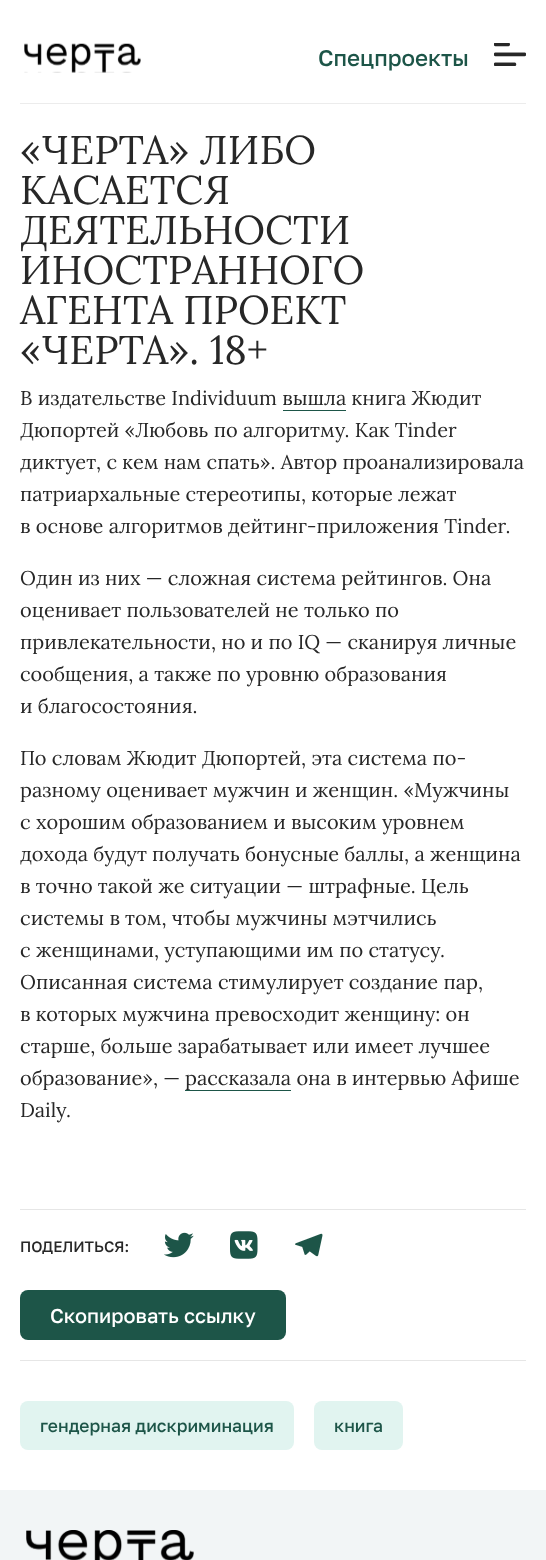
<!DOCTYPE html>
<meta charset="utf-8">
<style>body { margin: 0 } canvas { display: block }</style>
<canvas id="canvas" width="546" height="1560"></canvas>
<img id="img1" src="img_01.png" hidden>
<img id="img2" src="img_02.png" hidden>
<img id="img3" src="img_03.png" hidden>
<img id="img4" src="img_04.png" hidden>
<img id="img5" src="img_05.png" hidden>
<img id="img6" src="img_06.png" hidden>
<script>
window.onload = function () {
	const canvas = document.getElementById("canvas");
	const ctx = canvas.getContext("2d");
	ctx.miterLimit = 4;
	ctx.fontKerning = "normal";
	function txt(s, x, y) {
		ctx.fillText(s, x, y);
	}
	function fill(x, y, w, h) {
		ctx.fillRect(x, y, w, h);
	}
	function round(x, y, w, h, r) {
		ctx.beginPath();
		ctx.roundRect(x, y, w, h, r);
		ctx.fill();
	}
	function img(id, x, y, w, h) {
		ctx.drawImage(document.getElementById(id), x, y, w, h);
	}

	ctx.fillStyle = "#FFFFFF";
	fill(0, 0, 546, 1560);
	img("img1", 24, 43, 117, 30);
	img("img2", 494, 43, 32, 23);
	ctx.fillStyle = "#ECECEC";
	fill(20, 103, 506, 1);
	ctx.fillStyle = "#1D5548";
	fill(283, 410, 63, 1);
	fill(185, 1090, 106, 1);
	ctx.fillStyle = "#E6E6E6";
	fill(20, 1209, 506, 1);
	fill(20, 1360, 506, 1);
	img("img3", 164, 1232, 30, 26);
	img("img4", 230, 1231, 28, 28);
	img("img5", 295, 1233, 28, 24);
	ctx.fillStyle = "#1D5548";
	round(20, 1290, 266, 50, 8);
	ctx.fillStyle = "#E1F4F0";
	round(20, 1401, 274, 49, 8);
	round(314, 1401, 89, 49, 8);
	ctx.fillStyle = "#F2F5F6";
	fill(0, 1490, 546, 70);
	img("img6", 26, 1530, 168, 30);
	ctx.font = "500 22.5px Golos";
	ctx.fillStyle = "#1D5548";
	txt("Спецпроекты", 318, 66);
	ctx.font = "40px Lora";
	ctx.fillStyle = "#272727";
	txt("«ЧЕРТА» ЛИБО", 20, 164);
	txt("КАСАЕТСЯ", 20, 204);
	txt("ДЕЯТЕЛЬНОСТИ", 20, 244);
	txt("ИНОСТРАННОГО", 20, 284);
	txt("АГЕНТА ПРОЕКТ", 20, 324);
	txt("«ЧЕРТА». 18+", 20, 364);
	ctx.font = "20px Lora";
	txt("В издательстве Individuum вышла книга Жюдит", 20, 405);
	txt("Дюпортей «Любовь по алгоритму. Как Tinder", 20, 437);
	txt("диктует, с кем нам спать». Автор проанализировала", 20, 469);
	txt("патриархальные стереотипы, которые лежат", 20, 501);
	txt("в основе алгоритмов дейтинг-приложения Tinder.", 20, 533);
	txt("Один из них — сложная система рейтингов. Она", 20, 585);
	txt("оценивает пользователей не только по", 20, 617);
	txt("привлекательности, но и по IQ — сканируя личные", 20, 649);
	txt("сообщения, а также по уровню образования", 20, 681);
	txt("и благосостояния.", 20, 713);
	txt("По словам Жюдит Дюпортей, эта система по-", 20, 765);
	txt("разному оценивает мужчин и женщин. «Мужчины", 20, 797);
	txt("с хорошим образованием и высоким уровнем", 20, 829);
	txt("дохода будут получать бонусные баллы, а женщина", 20, 861);
	txt("в точно такой же ситуации — штрафные. Цель", 20, 893);
	txt("системы в том, чтобы мужчины мэтчились", 20, 925);
	txt("с женщинами, уступающими им по статусу.", 20, 957);
	txt("Описанная система стимулирует создание пар,", 20, 989);
	txt("в которых мужчина превосходит женщину: он", 20, 1021);
	txt("старше, больше зарабатывает или имеет лучшее", 20, 1053);
	txt("образование», —", 20, 1085);
	txt("рассказала она в интервью Афише", 185, 1085);
	txt("Daily.", 20, 1117);
	ctx.font = "500 15px Golos";
	txt("ПОДЕЛИТЬСЯ:", 20, 1252);
	ctx.font = "500 20px Golos";
	ctx.fillStyle = "#FFFFFF";
	txt("Скопировать ссылку", 50, 1323);
	ctx.font = "500 17.5px Golos";
	ctx.fillStyle = "#1D5548";
	txt("гендерная дискриминация", 40, 1432);
	txt("книга", 334, 1432);
};
</script>
